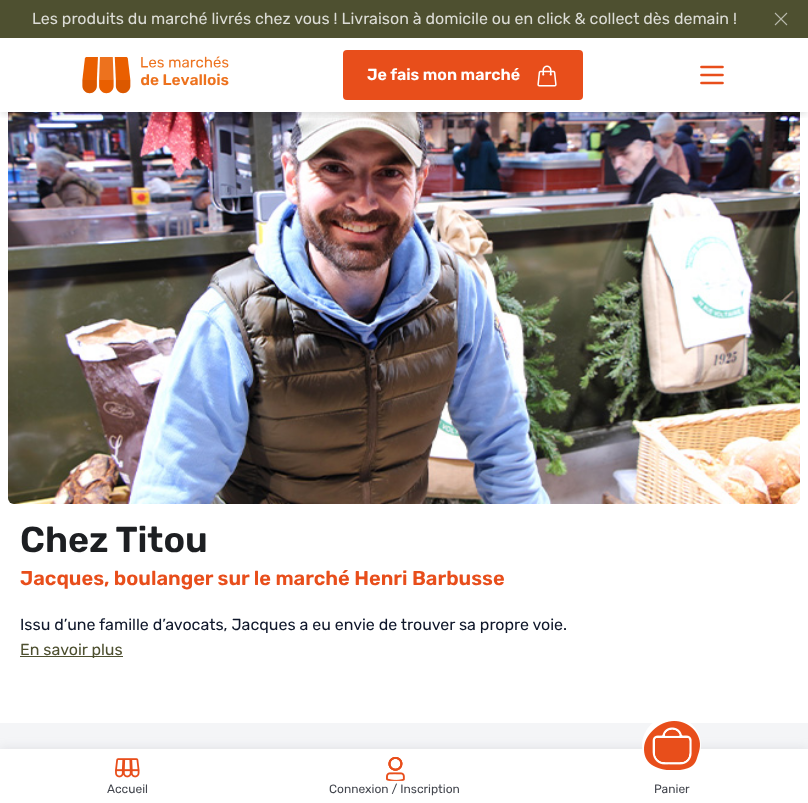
<!DOCTYPE html>
<meta charset="utf-8">
<style>body { margin: 0 } canvas { display: block }</style>
<canvas id="canvas" width="808" height="803"></canvas>
<img id="img1" src="img_03.png" hidden>
<img id="img2" src="img_01.png" hidden>
<img id="img3" src="img_02.png" hidden>
<img id="img4" src="img_04.png" hidden>
<img id="img5" src="img_05.png" hidden>
<img id="img6" src="img_06.png" hidden>
<script>
window.onload = function () {
	const canvas = document.getElementById("canvas");
	const ctx = canvas.getContext("2d");
	ctx.miterLimit = 4;
	ctx.fontKerning = "normal";
	function txt(s, x, y) {
		ctx.fillText(s, x, y);
	}
	function fill(x, y, w, h) {
		ctx.fillRect(x, y, w, h);
	}
	function round(x, y, w, h, r) {
		ctx.beginPath();
		ctx.roundRect(x, y, w, h, r);
		ctx.fill();
	}
	function img(id, x, y, w, h) {
		ctx.drawImage(document.getElementById(id), x, y, w, h);
	}

	ctx.fillStyle = "#FFFFFF";
	fill(0, 0, 808, 803);
	ctx.fillStyle = "#4E5030";
	fill(0, 0, 808, 38);
	ctx.beginPath();
	ctx.moveTo(775, 13);
	ctx.lineTo(787, 25);
	ctx.moveTo(787, 13);
	ctx.lineTo(775, 25);
	ctx.strokeStyle = "#B8B9AC";
	ctx.lineWidth = 1.1;
	ctx.stroke();
	img("img1", 8, 112, 792, 392);
	ctx.save();
	ctx.beginPath();
	ctx.rect(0, 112, 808, 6);
	ctx.clip();
	ctx.fillStyle = "rgba(0, 0, 0, 0.1)";
	ctx.filter = "blur(3px)";
	ctx.beginPath();
	ctx.rect(1, 43, 806, 72);
	ctx.fill();
	ctx.filter = "none";
	ctx.restore();
	img("img2", 82, 56, 147, 38);
	ctx.fillStyle = "#E84E1B";
	round(343, 50, 240, 50, 4);
	img("img3", 537, 65, 20, 22);
	ctx.beginPath();
	ctx.moveTo(701.5, 75);
	ctx.lineTo(722.5, 75);
	ctx.moveTo(701.5, 67);
	ctx.lineTo(722.5, 67);
	ctx.moveTo(701.5, 83);
	ctx.lineTo(722.5, 83);
	ctx.strokeStyle = "#E84E1B";
	ctx.lineWidth = 2.7;
	ctx.lineCap = "round";
	ctx.lineJoin = "round";
	ctx.stroke();
	ctx.fillStyle = "#4E5030";
	fill(20, 656, 103, 1);
	ctx.fillStyle = "#F4F5F7";
	fill(0, 723, 808, 26);
	ctx.fillStyle = "rgba(141, 143, 154, 0.15)";
	ctx.filter = "blur(5px)";
	ctx.beginPath();
	ctx.rect(0, 747, 808, 54);
	ctx.fill();
	ctx.filter = "none";
	ctx.fillStyle = "#FFFFFF";
	fill(0, 749, 808, 54);
	img("img4", 115, 758, 25, 20);
	img("img5", 386, 756, 19, 25);
	ctx.beginPath();
	ctx.arc(671.5, 745.5, 29.5, 0, Math.PI * 2);
	ctx.fill();
	img("img6", 644, 721, 56, 49);
	ctx.font = "16px Rubik";
	ctx.fillStyle = "#DCDCD6";
	txt("Les produits du marché livrés chez vous ! Livraison à domicile ou en click & collect dès demain !", 32, 24);
	ctx.font = "600 16px Rubik";
	ctx.fillStyle = "#FFFFFF";
	txt("Je fais mon marché", 367, 80);
	ctx.font = "600 36px Rubik";
	ctx.fillStyle = "#1D1F22";
	txt("Chez Titou", 20, 552);
	ctx.font = "600 20px Rubik";
	ctx.fillStyle = "#E84E1B";
	txt("Jacques, boulanger sur le marché Henri Barbusse", 20, 585);
	ctx.font = "16px Rubik";
	ctx.fillStyle = "#0F172A";
	txt("Issu d’une famille d’avocats, Jacques a eu envie de trouver sa propre voie.", 20, 630);
	ctx.fillStyle = "#4E5030";
	txt("En savoir plus", 20, 655);
	ctx.font = "12px Rubik";
	ctx.fillStyle = "#43464E";
	txt("Accueil", 107, 793);
	txt("Connexion / Inscription", 329, 793);
	txt("Panier", 654, 793);
};
</script>
